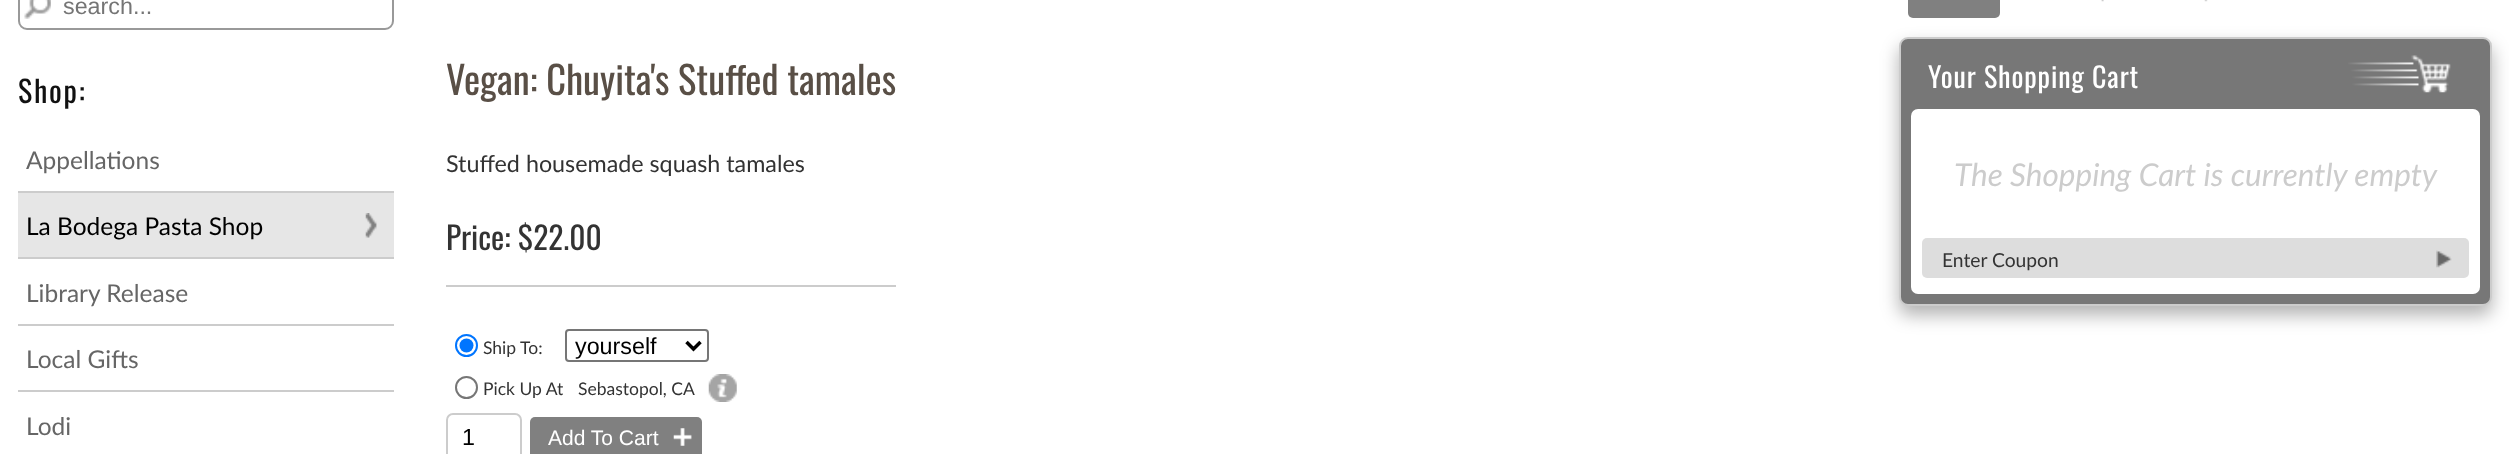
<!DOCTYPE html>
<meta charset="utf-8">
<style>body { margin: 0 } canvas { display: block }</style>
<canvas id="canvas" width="2509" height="454"></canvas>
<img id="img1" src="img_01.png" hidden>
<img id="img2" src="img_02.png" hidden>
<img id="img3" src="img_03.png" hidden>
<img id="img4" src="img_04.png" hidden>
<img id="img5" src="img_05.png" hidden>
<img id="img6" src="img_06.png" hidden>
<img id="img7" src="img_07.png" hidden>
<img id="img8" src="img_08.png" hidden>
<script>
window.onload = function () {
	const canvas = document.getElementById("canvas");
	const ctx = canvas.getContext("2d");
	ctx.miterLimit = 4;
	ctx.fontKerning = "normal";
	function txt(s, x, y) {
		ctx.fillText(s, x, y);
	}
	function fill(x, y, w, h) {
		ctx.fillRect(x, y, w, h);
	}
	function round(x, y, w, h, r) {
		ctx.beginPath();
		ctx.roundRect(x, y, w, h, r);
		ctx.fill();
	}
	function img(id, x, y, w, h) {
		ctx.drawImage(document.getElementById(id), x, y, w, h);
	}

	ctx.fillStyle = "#FFFFFF";
	fill(0, 0, 2509, 454);
	img("img1", 24, 0, 27, 19);
	ctx.beginPath();
	ctx.roundRect(19, -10, 374, 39, 8);
	ctx.strokeStyle = "#999999";
	ctx.lineWidth = 2;
	ctx.stroke();
	ctx.fillStyle = "#CCCCCC";
	fill(18, 191, 376, 2);
	ctx.fillStyle = "#E6E6E6";
	fill(18, 193, 376, 64);
	img("img2", 365, 213, 12, 25);
	ctx.fillStyle = "#CCCCCC";
	fill(18, 257, 376, 2);
	fill(18, 324, 376, 2);
	fill(18, 390, 376, 2);
	fill(446, 285, 450, 2);
	ctx.beginPath();
	ctx.arc(466.5, 345.5, 10.5, 0, Math.PI * 2);
	ctx.strokeStyle = "#0075FF";
	ctx.stroke();
	ctx.fillStyle = "#0075FF";
	ctx.beginPath();
	ctx.arc(466.5, 345.5, 7, 0, Math.PI * 2);
	ctx.fill();
	ctx.beginPath();
	ctx.roundRect(566, 330, 142, 31, 3);
	ctx.strokeStyle = "#767676";
	ctx.stroke();
	ctx.beginPath();
	ctx.moveTo(686.5, 342);
	ctx.lineTo(693.5, 349);
	ctx.lineTo(700.5, 342);
	ctx.strokeStyle = "#000000";
	ctx.lineWidth = 3.5;
	ctx.stroke();
	ctx.beginPath();
	ctx.arc(466.5, 387.5, 10.5, 0, Math.PI * 2);
	ctx.strokeStyle = "#767676";
	ctx.lineWidth = 2;
	ctx.stroke();
	img("img3", 708, 374, 29, 28);
	ctx.beginPath();
	ctx.roundRect(447, 414, 74, 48, 6);
	ctx.strokeStyle = "#CCCCCC";
	ctx.stroke();
	ctx.fillStyle = "#808080";
	round(530, 417, 172, 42, 5);
	img("img4", 673, 428, 19, 18);
	round(1908, -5, 92, 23, 5);
	img("img5", 2101, 0, 3, 2);
	img("img6", 2204, 0, 4, 2);
	ctx.fillStyle = "rgba(0, 0, 0, 0.3)";
	ctx.filter = "blur(9px)";
	ctx.beginPath();
	ctx.roundRect(1899, 46, 593, 269, 9);
	ctx.fill();
	ctx.filter = "none";
	ctx.fillStyle = "#777777";
	ctx.beginPath();
	ctx.roundRect(1900, 38, 591, 267, 8);
	ctx.fill();
	ctx.stroke();
	img("img7", 2348, 55, 103, 38);
	ctx.fillStyle = "#FFFFFF";
	round(1911, 109, 569, 185, 7);
	ctx.fillStyle = "#DDDDDD";
	round(1922, 238, 547, 40, 5);
	img("img8", 2436, 250, 16, 18);
	ctx.font = "23.3px Liberation Sans";
	ctx.fillStyle = "#757575";
	txt("search...", 63, 14);
	ctx.letterSpacing = "1.75px";
	ctx.font = "30px Oswald";
	ctx.fillStyle = "#111111";
	txt("Shop:", 18, 103);
	ctx.letterSpacing = "0px";
	ctx.font = "24.5px Lato";
	ctx.fillStyle = "#666666";
	txt("Appellations", 26, 169);
	ctx.fillStyle = "#000000";
	txt("La Bodega Pasta Shop", 26, 235);
	ctx.fillStyle = "#666666";
	txt("Library Release", 26, 302);
	txt("Local Gifts", 26, 368);
	txt("Lodi", 26, 435);
	ctx.font = "38.5px Oswald";
	ctx.fillStyle = "#594F46";
	txt("Vegan: Chuyita's Stuffed tamales", 446, 95);
	ctx.font = "23.3px Lato";
	ctx.fillStyle = "#333333";
	txt("Stuffed housemade squash tamales", 446, 172);
	ctx.font = "31.5px Oswald";
	txt("Price: $22.00", 446, 250);
	ctx.font = "17.5px Lato";
	txt("Ship To:", 483, 354);
	ctx.font = "23.3px Liberation Sans";
	ctx.fillStyle = "#000000";
	txt("yourself", 575, 354);
	ctx.font = "17.5px Lato";
	ctx.fillStyle = "#333333";
	txt("Pick Up At", 483, 395);
	txt("Sebastopol, CA", 578, 395);
	ctx.font = "23.3px Liberation Sans";
	ctx.fillStyle = "#000000";
	txt("1", 462, 445);
	ctx.font = "21px Liberation Sans";
	ctx.fillStyle = "#FFFFFF";
	txt("Add To Cart", 548, 445);
	ctx.letterSpacing = "0.9px";
	ctx.font = "28px Oswald";
	txt("Your Shopping Cart", 1928, 88);
	ctx.letterSpacing = "0px";
	ctx.font = "italic 31.5px Lato";
	ctx.fillStyle = "#CCCCCC";
	txt("The Shopping Cart is currently empty", 1954, 186);
	ctx.font = "19.25px Lato";
	ctx.fillStyle = "#333333";
	txt("Enter Coupon", 1942, 267);
};
</script>
